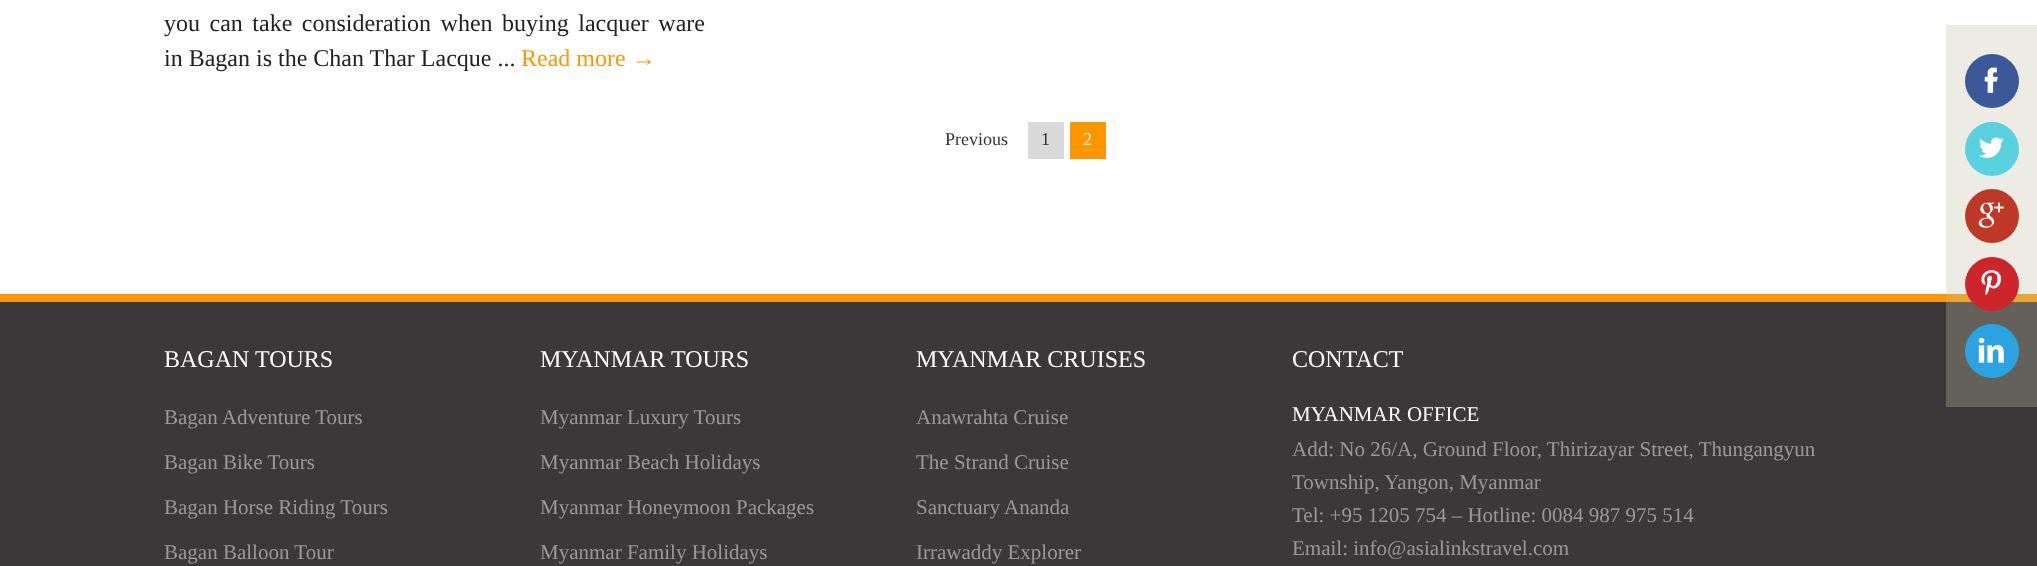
<!DOCTYPE html>
<meta charset="utf-8">
<style>body { margin: 0 } canvas { display: block }</style>
<canvas id="canvas" width="2037" height="566"></canvas>
<img id="img1" src="img_01.png" hidden>
<img id="img2" src="img_02.png" hidden>
<img id="img3" src="img_03.png" hidden>
<img id="img4" src="img_04.png" hidden>
<img id="img5" src="img_05.png" hidden>
<script>
window.onload = function () {
	const canvas = document.getElementById("canvas");
	const ctx = canvas.getContext("2d");
	ctx.miterLimit = 4;
	ctx.fontKerning = "normal";
	function txt(s, x, y) {
		ctx.fillText(s, x, y);
	}
	function fill(x, y, w, h) {
		ctx.fillRect(x, y, w, h);
	}
	function img(id, x, y, w, h) {
		ctx.drawImage(document.getElementById(id), x, y, w, h);
	}

	ctx.fillStyle = "#FFFFFF";
	fill(0, 0, 2037, 566);
	ctx.fillStyle = "#EDECE4";
	fill(1946, 25, 91, 269);
	ctx.fillStyle = "#DADADA";
	fill(1028, 122, 36, 37);
	ctx.fillStyle = "#FF9600";
	fill(1070, 122, 36, 37);
	ctx.fillStyle = "#3B5999";
	ctx.beginPath();
	ctx.arc(1992, 81, 27, 0, Math.PI * 2);
	ctx.fill();
	img("img1", 1984, 67, 14, 26);
	ctx.fillStyle = "#59D1DF";
	ctx.beginPath();
	ctx.arc(1992, 149, 27, 0, Math.PI * 2);
	ctx.fill();
	img("img2", 1979, 137, 25, 21);
	ctx.fillStyle = "#BF3727";
	ctx.beginPath();
	ctx.arc(1992, 216, 27, 0, Math.PI * 2);
	ctx.fill();
	img("img3", 1978, 202, 26, 26);
	ctx.fillStyle = "#3A3839";
	fill(0, 302, 2037, 264);
	ctx.fillStyle = "#636159";
	fill(1946, 302, 91, 105);
	ctx.fillStyle = "#EDA332";
	fill(1946, 294, 91, 8);
	ctx.fillStyle = "#CD252B";
	ctx.beginPath();
	ctx.arc(1992, 284, 27, 0, Math.PI * 2);
	ctx.fill();
	img("img4", 1981, 270, 20, 26);
	ctx.fillStyle = "#2BA3E1";
	ctx.beginPath();
	ctx.arc(1992, 351, 27, 0, Math.PI * 2);
	ctx.fill();
	img("img5", 1978, 337, 26, 26);
	ctx.fillStyle = "#FF9600";
	fill(0, 294, 1946, 8);
	ctx.wordSpacing = "3.5px";
	ctx.font = "24px Liberation Serif";
	ctx.fillStyle = "#222222";
	txt("you can take consideration when buying lacquer ware", 164, 31);
	ctx.wordSpacing = "0px";
	txt("in Bagan is the Chan Thar Lacque ...", 164, 66);
	ctx.fillStyle = "#FF9600";
	txt("Read more →", 521, 66);
	ctx.font = "18px Liberation Serif";
	ctx.fillStyle = "#333333";
	txt("Previous", 945, 145);
	txt("1", 1041, 145);
	ctx.fillStyle = "#FFFFFF";
	txt("2", 1083, 145);
	ctx.font = "24px Liberation Serif";
	txt("BAGAN TOURS", 164, 367);
	ctx.font = "21px Liberation Serif";
	ctx.fillStyle = "#999999";
	txt("Bagan Adventure Tours", 164, 424);
	txt("Bagan Bike Tours", 164, 469);
	txt("Bagan Horse Riding Tours", 164, 514);
	txt("Bagan Balloon Tour", 164, 559);
	ctx.font = "24px Liberation Serif";
	ctx.fillStyle = "#FFFFFF";
	txt("MYANMAR TOURS", 540, 367);
	ctx.font = "21px Liberation Serif";
	ctx.fillStyle = "#999999";
	txt("Myanmar Luxury Tours", 540, 424);
	txt("Myanmar Beach Holidays", 540, 469);
	txt("Myanmar Honeymoon Packages", 540, 514);
	txt("Myanmar Family Holidays", 540, 559);
	ctx.font = "24px Liberation Serif";
	ctx.fillStyle = "#FFFFFF";
	txt("MYANMAR CRUISES", 916, 367);
	ctx.font = "21px Liberation Serif";
	ctx.fillStyle = "#999999";
	txt("Anawrahta Cruise", 916, 424);
	txt("The Strand Cruise", 916, 469);
	txt("Sanctuary Ananda", 916, 514);
	txt("Irrawaddy Explorer", 916, 559);
	ctx.font = "24px Liberation Serif";
	ctx.fillStyle = "#FFFFFF";
	txt("CONTACT", 1292, 367);
	ctx.font = "21px Liberation Serif";
	txt("MYANMAR OFFICE", 1292, 421);
	ctx.fillStyle = "#999999";
	txt("Add: No 26/A, Ground Floor, Thirizayar Street, Thungangyun", 1292, 456);
	txt("Township, Yangon, Myanmar", 1292, 489);
	txt("Tel: +95 1205 754 – Hotline: 0084 987 975 514", 1292, 522);
	txt("Email: info@asialinkstravel.com", 1292, 555);
};
</script>
